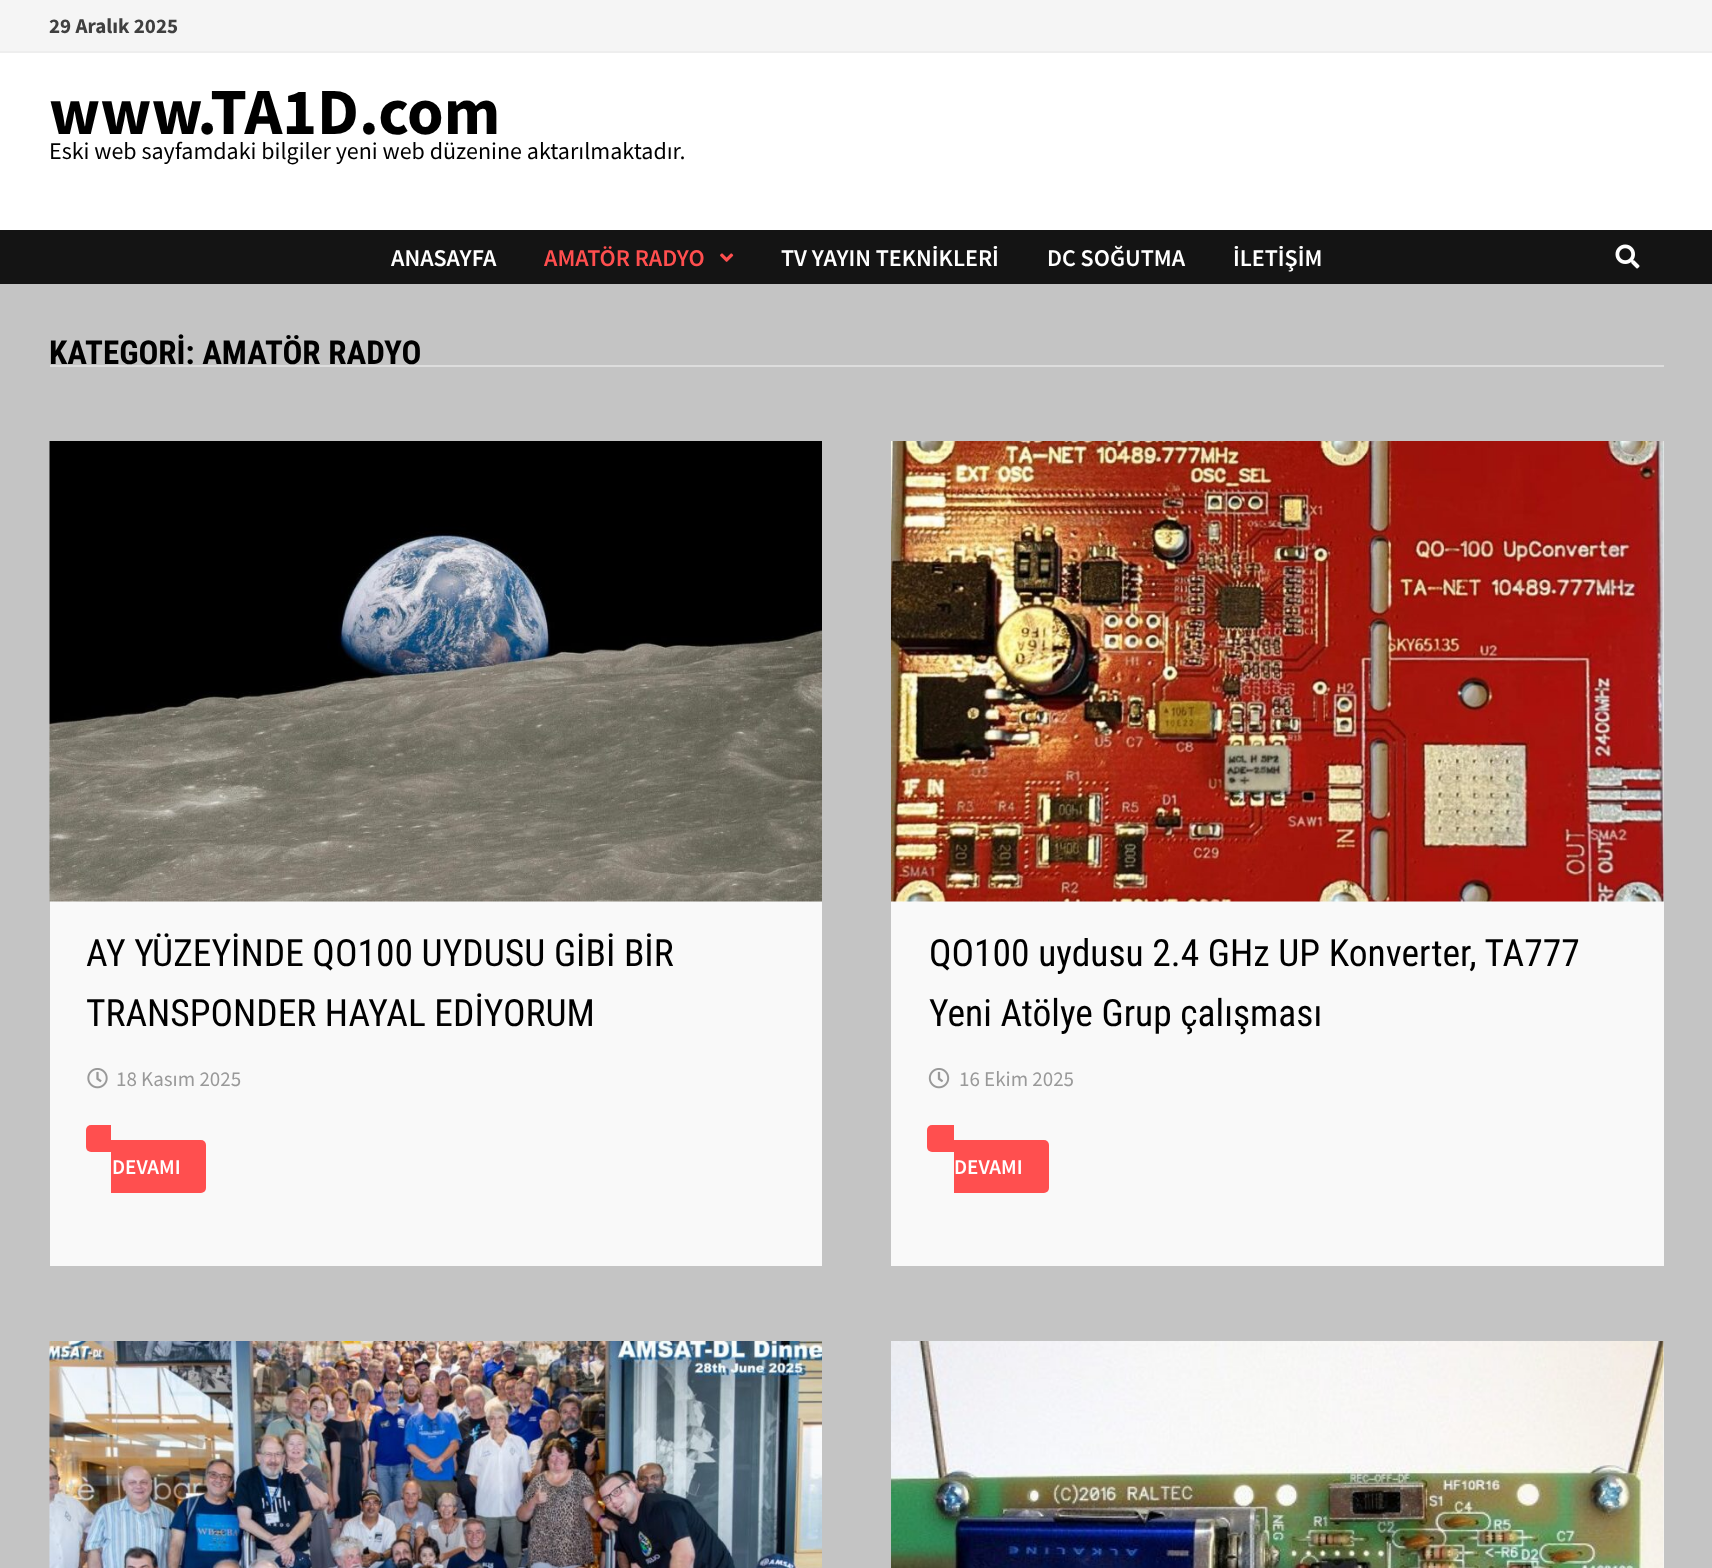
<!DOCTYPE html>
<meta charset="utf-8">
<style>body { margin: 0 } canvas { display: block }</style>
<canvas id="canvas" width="1712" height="1568"></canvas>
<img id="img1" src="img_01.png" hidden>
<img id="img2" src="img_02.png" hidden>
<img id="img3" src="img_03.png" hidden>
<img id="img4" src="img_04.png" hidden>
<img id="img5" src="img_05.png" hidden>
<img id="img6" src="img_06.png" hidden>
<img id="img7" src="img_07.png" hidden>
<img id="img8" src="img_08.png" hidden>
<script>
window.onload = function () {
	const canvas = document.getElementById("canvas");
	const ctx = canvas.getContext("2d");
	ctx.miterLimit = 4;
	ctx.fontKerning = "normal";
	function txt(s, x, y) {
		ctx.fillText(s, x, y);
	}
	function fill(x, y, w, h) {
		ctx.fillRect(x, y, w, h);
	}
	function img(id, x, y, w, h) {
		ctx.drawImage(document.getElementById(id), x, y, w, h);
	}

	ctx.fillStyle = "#FFFFFF";
	fill(0, 0, 1712, 1568);
	ctx.fillStyle = "#F5F5F5";
	fill(0, 0, 1712, 51);
	ctx.fillStyle = "#EEEEEE";
	fill(0, 51, 1712, 2);
	ctx.fillStyle = "#141414";
	fill(0, 230, 1712, 54);
	img("img1", 720, 253, 14, 9);
	img("img2", 1615, 244, 25, 25);
	ctx.fillStyle = "#C4C4C4";
	fill(0, 284, 1712, 1284);
	ctx.fillStyle = "#DDDDDD";
	fill(50, 365, 1614, 2);
	ctx.fillStyle = "#F9F9F9";
	fill(50, 901, 772, 365);
	img("img3", 49, 441, 773, 461);
	img("img4", 87, 1068, 21, 21);
	ctx.fillStyle = "#FF4F4F";
	ctx.beginPath();
	ctx.roundRect(86, 1125, 25, 27, [5, 0, 0, 5]);
	ctx.fill();
	ctx.beginPath();
	ctx.roundRect(111, 1140, 95, 53, [0, 5, 5, 0]);
	ctx.fill();
	ctx.fillStyle = "#F9F9F9";
	fill(891, 441, 773, 825);
	img("img5", 891, 441, 773, 461);
	img("img6", 928, 1068, 22, 21);
	ctx.fillStyle = "#FF4F4F";
	ctx.beginPath();
	ctx.roundRect(927, 1125, 27, 27, [5, 0, 0, 5]);
	ctx.fill();
	ctx.beginPath();
	ctx.roundRect(954, 1140, 95, 53, [0, 5, 5, 0]);
	ctx.fill();
	img("img7", 49, 1341, 773, 227);
	ctx.fillStyle = "#F9F9F9";
	fill(1663, 1341, 1, 227);
	img("img8", 891, 1341, 773, 227);
	ctx.font = "bold 21px Source Sans Pro";
	ctx.fillStyle = "#404040";
	txt("29 Aralık 2025", 49, 33);
	ctx.font = "bold 66px Source Sans Pro";
	ctx.fillStyle = "#000000";
	txt("www.TA1D.com", 49, 134);
	ctx.font = "24px Source Sans Pro";
	txt("Eski web sayfamdaki bilgiler yeni web düzenine aktarılmaktadır.", 49, 159);
	ctx.font = "600 24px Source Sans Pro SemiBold";
	ctx.fillStyle = "#FFFFFF";
	txt("ANASAYFA", 391, 266);
	ctx.fillStyle = "#FF4F4F";
	txt("AMATÖR RADYO", 544, 266);
	ctx.fillStyle = "#FFFFFF";
	txt("TV YAYIN TEKNİKLERİ", 781, 266);
	txt("DC SOĞUTMA", 1047, 266);
	txt("İLETİŞİM", 1233, 266);
	ctx.font = "bold 33px Roboto Condensed";
	ctx.fillStyle = "#000000";
	txt("KATEGORİ: AMATÖR RADYO", 49, 364);
	ctx.font = "37.5px Roboto Condensed";
	txt("AY YÜZEYİNDE QO100 UYDUSU GİBİ BİR", 86, 966);
	txt("TRANSPONDER HAYAL EDİYORUM", 86, 1026);
	ctx.font = "21px Source Sans Pro";
	ctx.fillStyle = "#999999";
	txt("18 Kasım 2025", 116, 1086);
	ctx.font = "600 21px Source Sans Pro SemiBold";
	ctx.fillStyle = "#FFFFFF";
	txt("DEVAMI", 112, 1174);
	ctx.font = "37.5px Roboto Condensed";
	ctx.fillStyle = "#000000";
	txt("QO100 uydusu 2.4 GHz UP Konverter, TA777", 929, 966);
	txt("Yeni Atölye Grup çalışması", 929, 1026);
	ctx.font = "21px Source Sans Pro";
	ctx.fillStyle = "#999999";
	txt("16 Ekim 2025", 959, 1086);
	ctx.font = "600 21px Source Sans Pro SemiBold";
	ctx.fillStyle = "#FFFFFF";
	txt("DEVAMI", 954, 1174);
};
</script>
